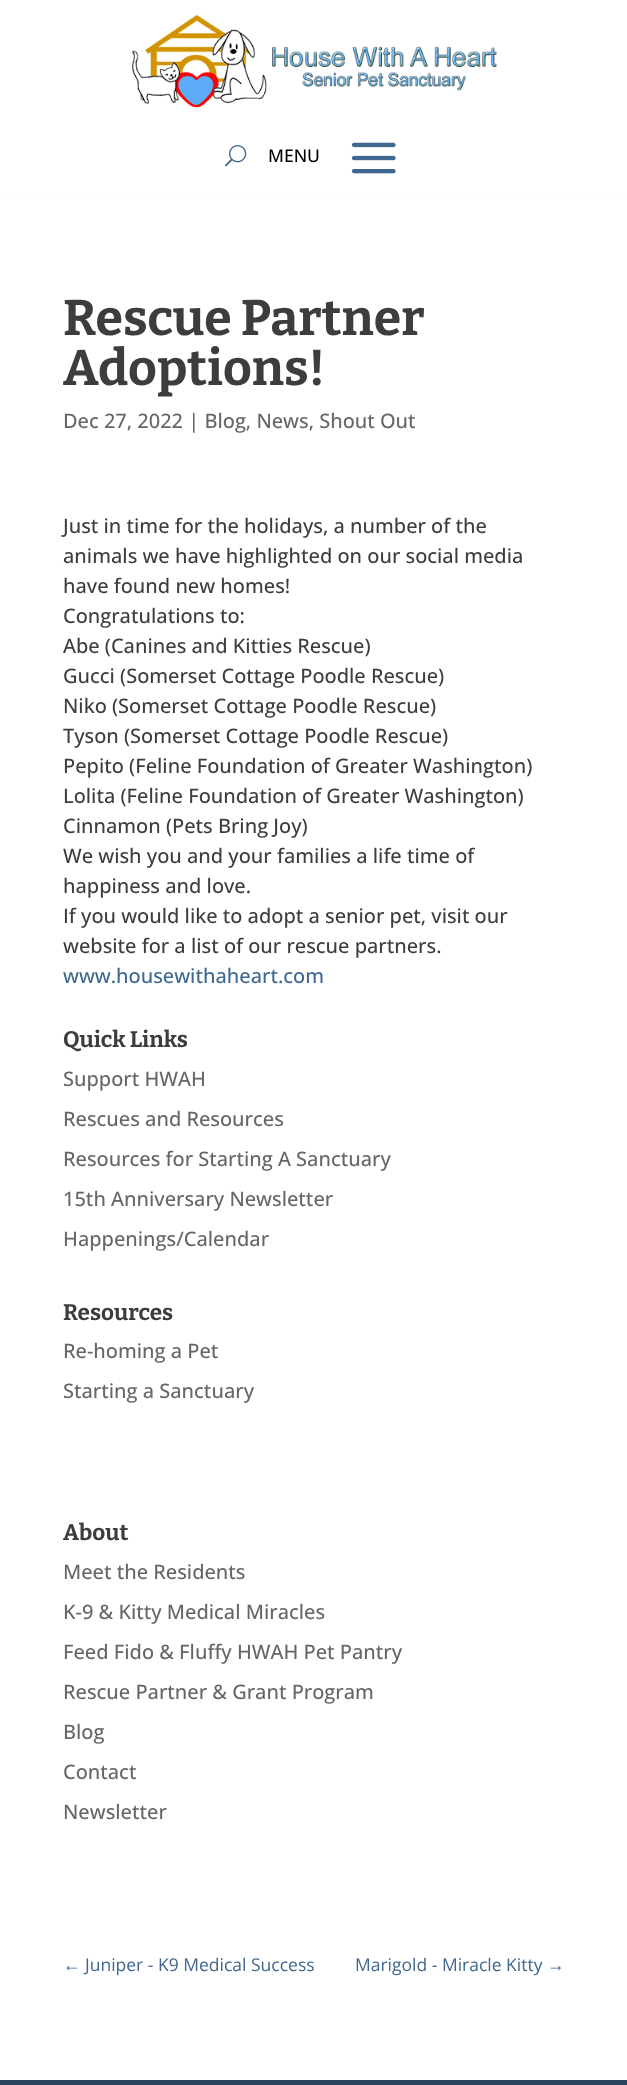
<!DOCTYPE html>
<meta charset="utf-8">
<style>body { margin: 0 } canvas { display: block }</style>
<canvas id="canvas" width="627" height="2085"></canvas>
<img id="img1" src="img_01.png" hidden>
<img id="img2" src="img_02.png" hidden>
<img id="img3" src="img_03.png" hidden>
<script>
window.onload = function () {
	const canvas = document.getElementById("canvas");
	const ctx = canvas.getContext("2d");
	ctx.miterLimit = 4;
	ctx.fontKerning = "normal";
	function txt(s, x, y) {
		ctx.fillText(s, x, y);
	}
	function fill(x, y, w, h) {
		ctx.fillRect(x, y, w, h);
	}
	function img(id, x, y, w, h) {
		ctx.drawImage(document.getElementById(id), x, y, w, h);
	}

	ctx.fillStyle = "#FFFFFF";
	fill(0, 0, 627, 2085);
	ctx.fillStyle = "#FAFAFA";
	fill(0, 193, 627, 1);
	img("img1", 132, 15, 365, 93);
	img("img2", 225, 145, 22, 22);
	img("img3", 351, 142, 45, 32);
	ctx.fillStyle = "#29435D";
	fill(0, 2080, 627, 5);
	ctx.font = "500 17.5px Open Sans";
	ctx.fillStyle = "#000000";
	txt("MENU", 268, 162);
	ctx.font = "100 50px Bitter";
	ctx.fillStyle = "#3D3D3D";
	txt("Rescue Partner", 63, 335);
	txt("Adoptions!", 63, 385);
	ctx.font = "500 20px Open Sans";
	ctx.fillStyle = "#666666";
	txt("Dec 27, 2022 | Blog, News, Shout Out", 63, 428);
	ctx.fillStyle = "#3D3D3D";
	txt("Just in time for the holidays, a number of the", 63, 533);
	txt("animals we have highlighted on our social media", 63, 563);
	txt("have found new homes!", 63, 593);
	txt("Congratulations to:", 63, 623);
	txt("Abe (Canines and Kitties Rescue)", 63, 653);
	txt("Gucci (Somerset Cottage Poodle Rescue)", 63, 683);
	txt("Niko (Somerset Cottage Poodle Rescue)", 63, 713);
	txt("Tyson (Somerset Cottage Poodle Rescue)", 63, 743);
	txt("Pepito (Feline Foundation of Greater Washington)", 63, 773);
	txt("Lolita (Feline Foundation of Greater Washington)", 63, 803);
	txt("Cinnamon (Pets Bring Joy)", 63, 833);
	txt("We wish you and your families a life time of", 63, 863);
	txt("happiness and love.", 63, 893);
	txt("If you would like to adopt a senior pet, visit our", 63, 923);
	txt("website for a list of our rescue partners.", 63, 953);
	ctx.fillStyle = "#3F678F";
	txt("www.housewithaheart.com", 63, 983);
	ctx.font = "100 22.5px Bitter";
	ctx.fillStyle = "#3D3D3D";
	txt("Quick Links", 63, 1047);
	ctx.font = "500 20px Open Sans";
	ctx.fillStyle = "#666666";
	txt("Support HWAH", 63, 1086);
	txt("Rescues and Resources", 63, 1126);
	txt("Resources for Starting A Sanctuary", 63, 1166);
	txt("15th Anniversary Newsletter", 63, 1206);
	txt("Happenings/Calendar", 63, 1246);
	ctx.font = "100 22.5px Bitter";
	ctx.fillStyle = "#3D3D3D";
	txt("Resources", 63, 1320);
	ctx.font = "500 20px Open Sans";
	ctx.fillStyle = "#666666";
	txt("Re-homing a Pet", 63, 1358);
	txt("Starting a Sanctuary", 63, 1398);
	ctx.font = "100 22.5px Bitter";
	ctx.fillStyle = "#3D3D3D";
	txt("About", 63, 1540);
	ctx.font = "500 20px Open Sans";
	ctx.fillStyle = "#666666";
	txt("Meet the Residents", 63, 1579);
	txt("K-9 & Kitty Medical Miracles", 63, 1619);
	txt("Feed Fido & Fluffy HWAH Pet Pantry", 63, 1659);
	txt("Rescue Partner & Grant Program", 63, 1699);
	txt("Blog", 63, 1739);
	txt("Contact", 63, 1779);
	txt("Newsletter", 63, 1819);
	ctx.font = "17.5px Liberation Sans";
	ctx.fillStyle = "#3F678F";
	txt("←", 63, 1971);
	ctx.font = "17.5px Open Sans";
	txt("Juniper - K9 Medical Success", 85, 1971);
	txt("Marigold - Miracle Kitty", 355, 1971);
	ctx.font = "17.5px Liberation Sans";
	txt("→", 547, 1971);
};
</script>
